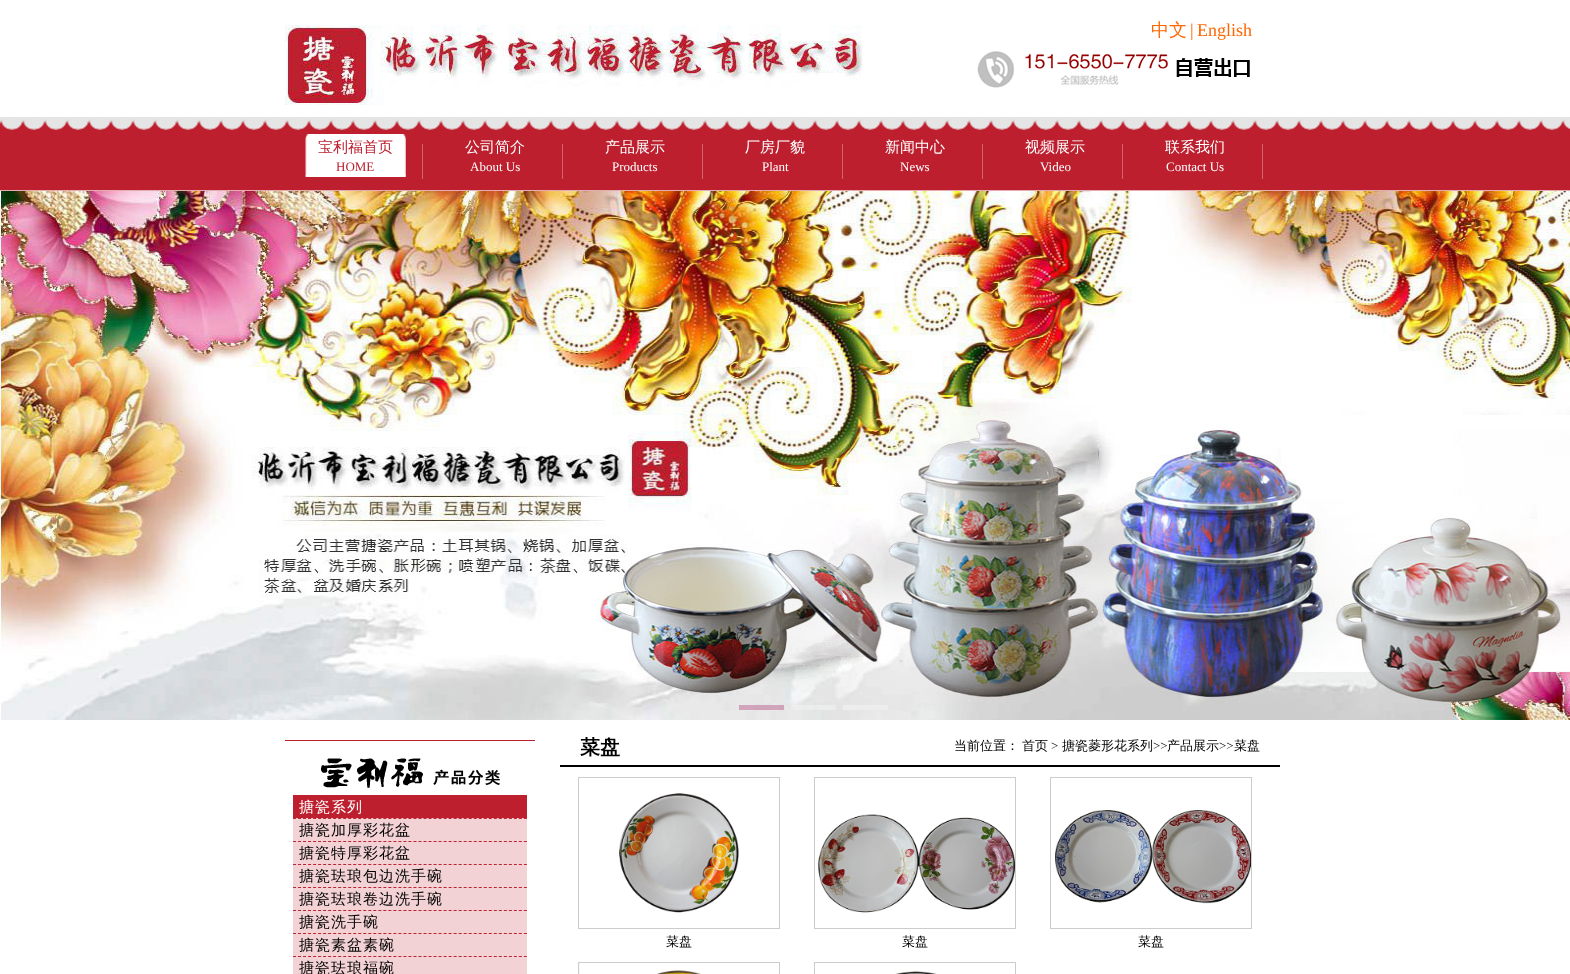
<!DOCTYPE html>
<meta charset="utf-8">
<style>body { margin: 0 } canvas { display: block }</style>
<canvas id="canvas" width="1570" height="974"></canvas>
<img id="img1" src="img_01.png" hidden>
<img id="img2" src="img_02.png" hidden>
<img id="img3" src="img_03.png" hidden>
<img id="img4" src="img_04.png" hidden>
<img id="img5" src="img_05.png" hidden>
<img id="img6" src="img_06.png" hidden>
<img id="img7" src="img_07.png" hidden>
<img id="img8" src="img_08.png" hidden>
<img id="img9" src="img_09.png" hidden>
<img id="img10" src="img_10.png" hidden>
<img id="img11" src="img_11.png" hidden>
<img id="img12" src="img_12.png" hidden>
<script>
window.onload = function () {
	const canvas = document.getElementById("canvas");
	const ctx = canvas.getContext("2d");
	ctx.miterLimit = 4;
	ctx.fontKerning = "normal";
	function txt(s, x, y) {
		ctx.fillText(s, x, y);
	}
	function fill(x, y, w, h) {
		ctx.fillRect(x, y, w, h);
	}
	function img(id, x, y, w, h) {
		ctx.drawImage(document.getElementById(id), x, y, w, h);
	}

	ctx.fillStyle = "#FFFFFF";
	fill(0, 0, 1570, 974);
	img("img1", 285, 25, 578, 80);
	img("img2", 977, 51, 273, 37);
	img("img3", 0, 117, 1570, 74);
	img("img4", 422, 144, 1, 35);
	img("img5", 305, 134, 101, 43);
	img("img4", 562, 144, 1, 35);
	img("img4", 702, 144, 1, 35);
	img("img4", 842, 144, 1, 35);
	img("img4", 982, 144, 1, 35);
	img("img4", 1122, 144, 1, 35);
	img("img4", 1262, 144, 1, 35);
	img("img6", 0, 191, 1570, 529);
	ctx.fillStyle = "rgba(155, 14, 87, 0.3)";
	fill(739, 705, 45, 5);
	ctx.fillStyle = "rgba(255, 255, 255, 0.3)";
	fill(791, 705, 45, 5);
	ctx.fillStyle = "#EDEDED";
	fill(843, 705, 45, 5);
	ctx.fillStyle = "#BD1F2E";
	fill(285, 740, 250, 1);
	img("img7", 321, 758, 179, 30);
	fill(293, 795, 234, 23);
	ctx.beginPath();
	ctx.moveTo(293, 795.5);
	ctx.lineTo(527, 795.5);
	ctx.strokeStyle = "#BE2332";
	ctx.setLineDash([3, 2.02]);
	ctx.stroke();
	ctx.fillStyle = "#F2D2D5";
	fill(293, 818, 234, 156);
	ctx.beginPath();
	ctx.moveTo(293, 818.5);
	ctx.lineTo(527, 818.5);
	ctx.stroke();
	ctx.beginPath();
	ctx.moveTo(293, 841.5);
	ctx.lineTo(527, 841.5);
	ctx.stroke();
	ctx.beginPath();
	ctx.moveTo(293, 864.5);
	ctx.lineTo(527, 864.5);
	ctx.stroke();
	ctx.beginPath();
	ctx.moveTo(293, 887.5);
	ctx.lineTo(527, 887.5);
	ctx.stroke();
	ctx.beginPath();
	ctx.moveTo(293, 910.5);
	ctx.lineTo(527, 910.5);
	ctx.stroke();
	ctx.beginPath();
	ctx.moveTo(293, 933.5);
	ctx.lineTo(527, 933.5);
	ctx.stroke();
	ctx.beginPath();
	ctx.moveTo(293, 956.5);
	ctx.lineTo(527, 956.5);
	ctx.stroke();
	ctx.fillStyle = "#000000";
	fill(560, 765, 720, 2);
	ctx.strokeStyle = "#CCCCCC";
	ctx.setLineDash([]);
	ctx.strokeRect(578.5, 777.5, 201, 151);
	img("img8", 619, 793, 120, 120);
	ctx.strokeRect(814.5, 777.5, 201, 151);
	img("img9", 818, 814, 197, 99);
	ctx.strokeRect(1050.5, 777.5, 201, 151);
	img("img10", 1055, 810, 196, 94);
	ctx.strokeRect(578.5, 962.5, 201, 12);
	img("img11", 579, 963, 122, 11);
	ctx.strokeRect(814.5, 962.5, 201, 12);
	img("img12", 895, 971, 42, 3);
	ctx.font = "500 18px WenQuanYi Zen Hei";
	ctx.fillStyle = "#FF6600";
	txt("中文", 1151, 36);
	ctx.font = "18px Liberation Serif";
	txt("|", 1190, 36);
	txt("English", 1197, 36);
	ctx.font = "500 15px WenQuanYi Zen Hei";
	ctx.fillStyle = "#BD1F2E";
	txt("宝利福首页", 318, 152);
	ctx.font = "13px Liberation Serif";
	txt("HOME", 336, 171);
	ctx.font = "500 15px WenQuanYi Zen Hei";
	ctx.fillStyle = "#FFFFFF";
	txt("公司简介", 465, 152);
	ctx.font = "13px Liberation Serif";
	txt("About Us", 470, 171);
	ctx.font = "500 15px WenQuanYi Zen Hei";
	txt("产品展示", 605, 152);
	ctx.font = "13px Liberation Serif";
	txt("Products", 612, 171);
	ctx.font = "500 15px WenQuanYi Zen Hei";
	txt("厂房厂貌", 745, 152);
	ctx.font = "13px Liberation Serif";
	txt("Plant", 762, 171);
	ctx.font = "500 15px WenQuanYi Zen Hei";
	txt("新闻中心", 885, 152);
	ctx.font = "13px Liberation Serif";
	txt("News", 900, 171);
	ctx.font = "500 15px WenQuanYi Zen Hei";
	txt("视频展示", 1025, 152);
	ctx.font = "13px Liberation Serif";
	txt("Video", 1040, 171);
	ctx.font = "500 15px WenQuanYi Zen Hei";
	txt("联系我们", 1165, 152);
	ctx.font = "13px Liberation Serif";
	txt("Contact Us", 1166, 171);
	ctx.letterSpacing = "1px";
	ctx.font = "500 15px WenQuanYi Zen Hei";
	txt("搪瓷系列", 299, 812);
	ctx.fillStyle = "#000000";
	txt("搪瓷加厚彩花盆", 299, 835);
	txt("搪瓷特厚彩花盆", 299, 858);
	txt("搪瓷珐琅包边洗手碗", 299, 881);
	txt("搪瓷珐琅卷边洗手碗", 299, 904);
	txt("搪瓷洗手碗", 299, 927);
	txt("搪瓷素盆素碗", 299, 950);
	txt("搪瓷珐琅福碗", 299, 973);
	ctx.letterSpacing = "0px";
	ctx.font = "bold 20px WenQuanYi Zen Hei";
	txt("菜盘", 580, 754);
	ctx.font = "500 13px WenQuanYi Zen Hei";
	txt("当前位置：", 954, 750);
	txt("首页", 1022, 750);
	ctx.font = "13px Liberation Serif";
	txt(">", 1051, 750);
	ctx.font = "500 13px WenQuanYi Zen Hei";
	txt("搪瓷菱形花系列", 1062, 750);
	ctx.font = "13px Liberation Serif";
	txt(">>", 1153, 750);
	ctx.font = "500 13px WenQuanYi Zen Hei";
	txt("产品展示", 1167, 750);
	ctx.font = "13px Liberation Serif";
	txt(">>", 1219, 750);
	ctx.font = "500 13px WenQuanYi Zen Hei";
	txt("菜盘", 1234, 750);
	txt("菜盘", 666, 946);
	txt("菜盘", 902, 946);
	txt("菜盘", 1138, 946);
};
</script>
